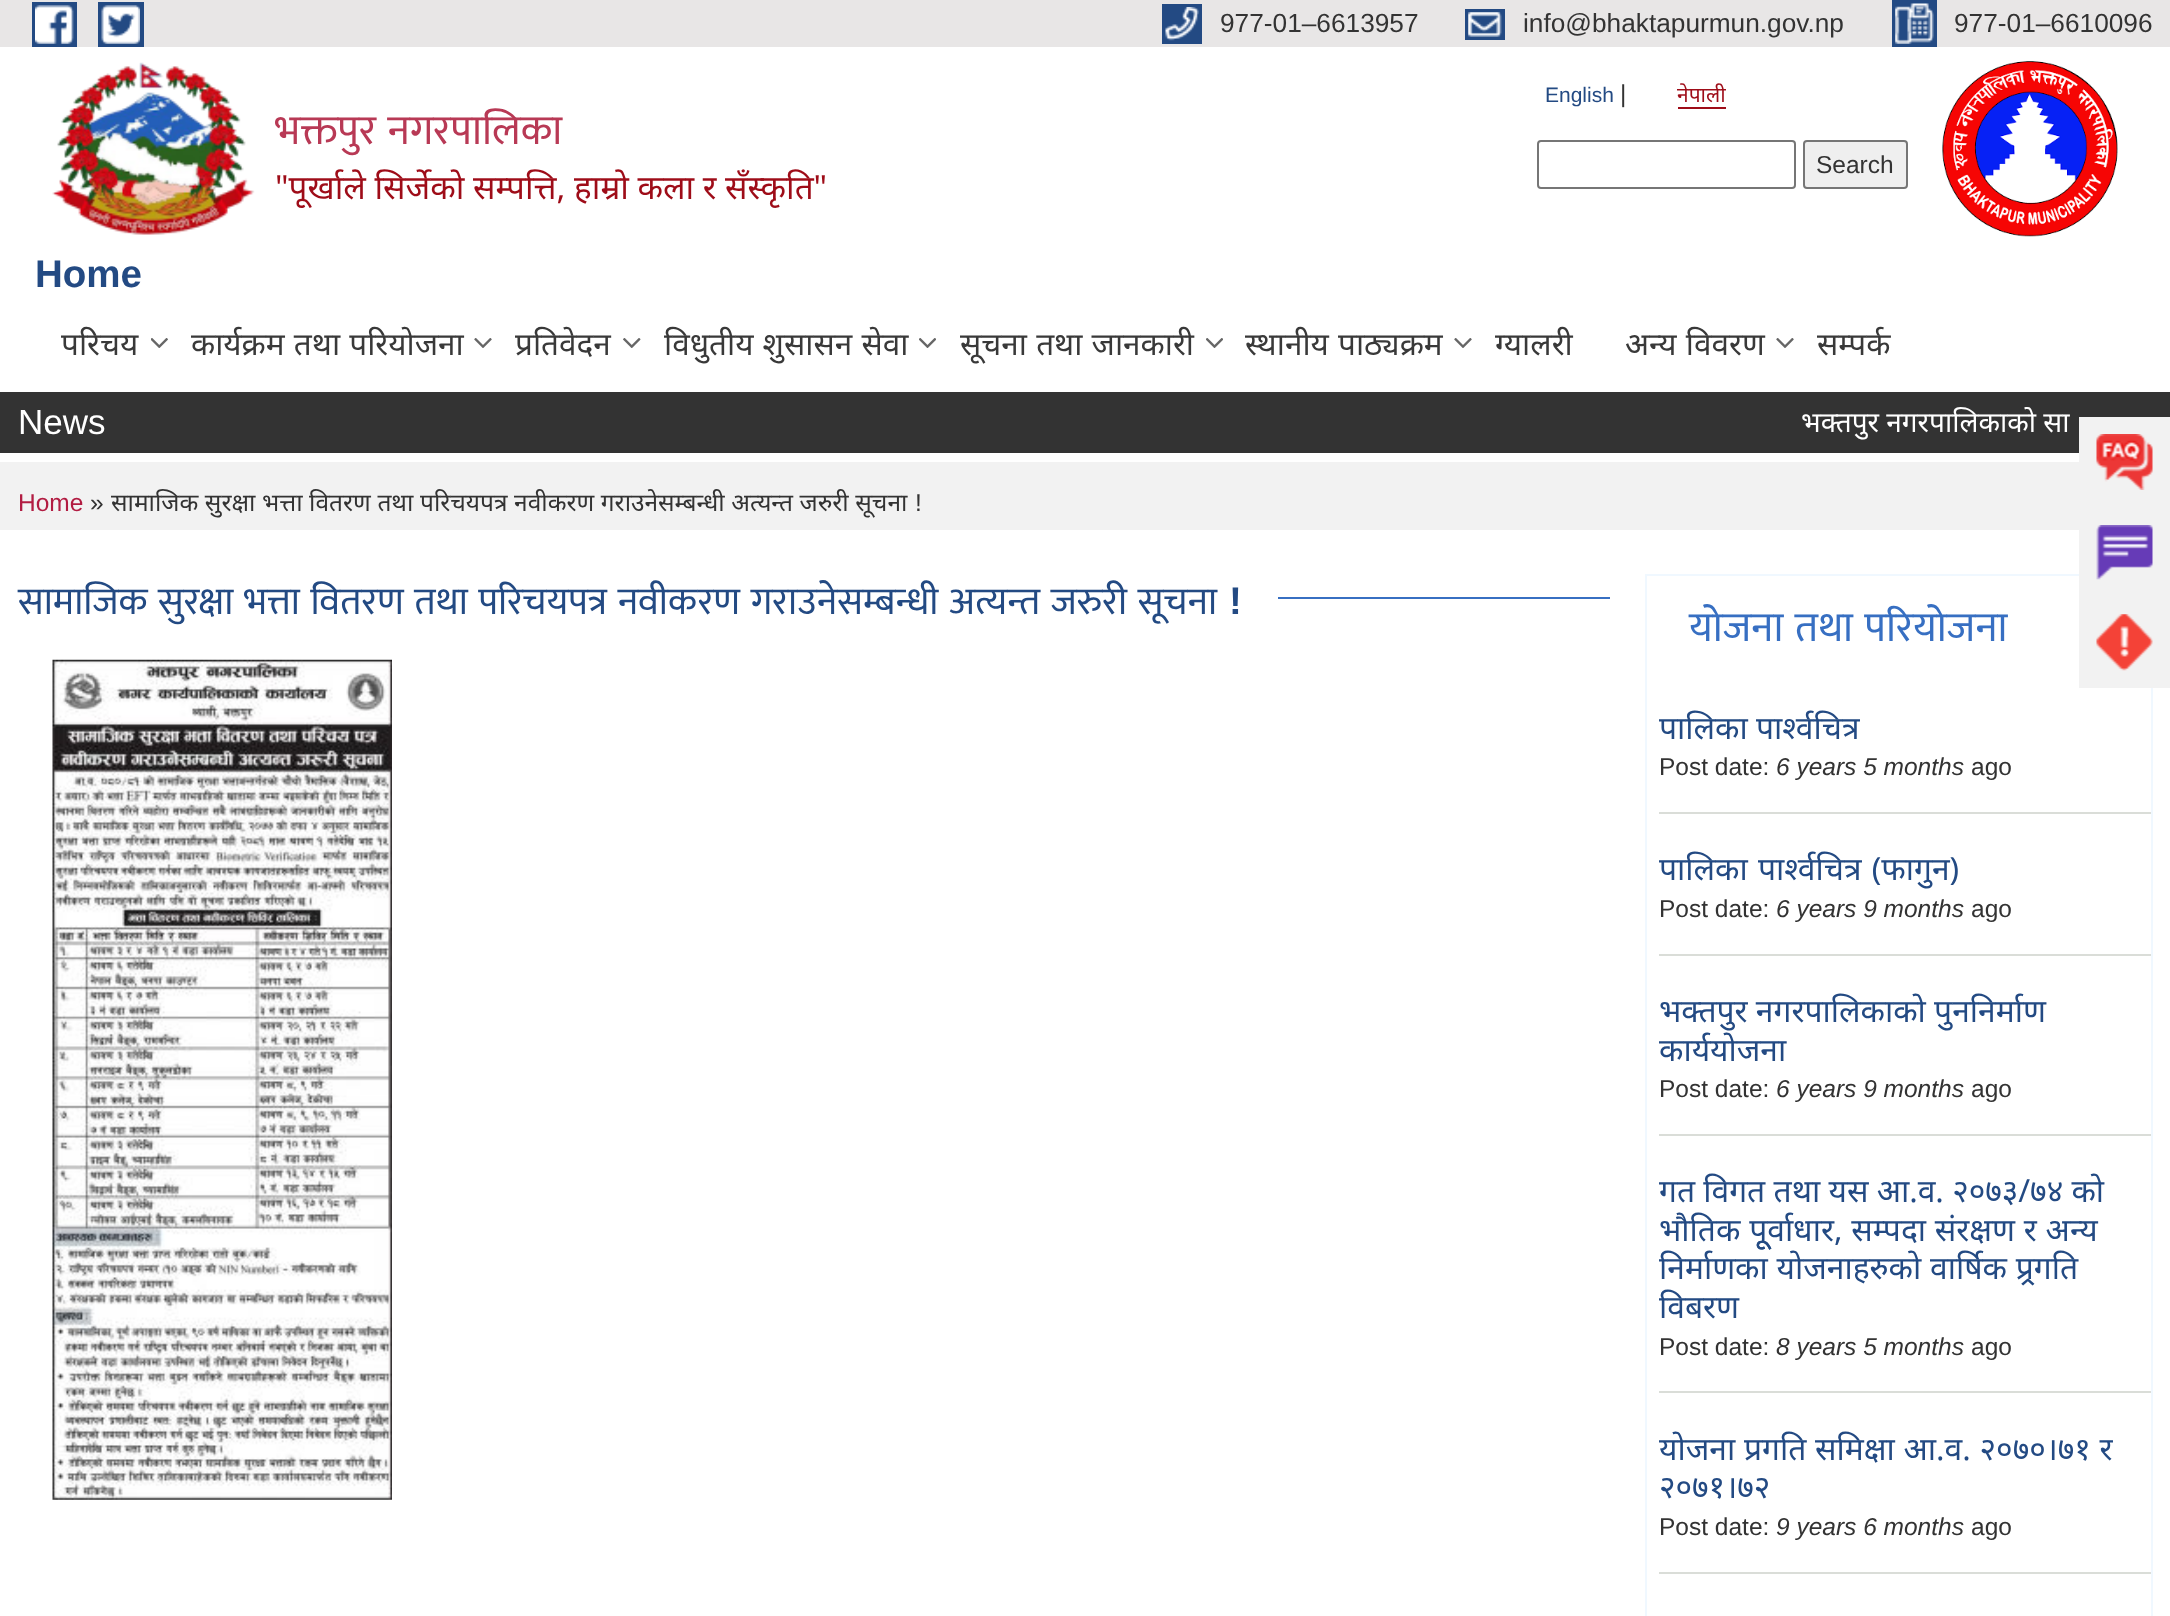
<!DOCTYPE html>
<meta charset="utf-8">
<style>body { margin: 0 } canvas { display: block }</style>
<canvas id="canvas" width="2170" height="1616"></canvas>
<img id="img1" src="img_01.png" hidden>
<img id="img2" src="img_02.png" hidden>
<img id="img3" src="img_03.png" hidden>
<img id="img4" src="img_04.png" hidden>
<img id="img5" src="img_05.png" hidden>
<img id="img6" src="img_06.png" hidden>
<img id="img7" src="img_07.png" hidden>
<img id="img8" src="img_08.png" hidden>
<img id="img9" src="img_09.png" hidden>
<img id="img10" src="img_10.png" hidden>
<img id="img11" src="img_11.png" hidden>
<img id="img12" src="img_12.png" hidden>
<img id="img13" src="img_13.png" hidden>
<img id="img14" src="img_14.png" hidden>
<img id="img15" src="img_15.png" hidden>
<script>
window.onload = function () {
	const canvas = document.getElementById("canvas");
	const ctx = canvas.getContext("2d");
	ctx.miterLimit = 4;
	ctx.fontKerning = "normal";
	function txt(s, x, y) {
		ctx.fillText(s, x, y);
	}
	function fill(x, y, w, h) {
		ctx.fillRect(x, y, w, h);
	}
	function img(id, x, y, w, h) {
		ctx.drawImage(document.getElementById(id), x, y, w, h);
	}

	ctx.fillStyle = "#FFFFFF";
	fill(0, 0, 2170, 1616);
	ctx.fillStyle = "#E8E6E6";
	fill(0, 0, 2170, 47);
	ctx.fillStyle = "#234A83";
	fill(32, 2, 45, 45);
	fill(98, 2, 46, 45);
	img("img1", 35, 5, 39, 39);
	img("img2", 101, 5, 39, 39);
	fill(1162, 4, 40, 40);
	img("img3", 1165, 7, 34, 34);
	fill(1465, 9, 40, 31);
	img("img4", 1468, 12, 34, 25);
	fill(1892, 0, 45, 47);
	img("img5", 1895, 3, 39, 41);
	img("img6", 52, 62, 203, 173);
	ctx.fillStyle = "#9E0C18";
	fill(1678, 107, 48, 2);
	ctx.beginPath();
	ctx.roundRect(1538, 141, 257, 47, 3);
	ctx.strokeStyle = "#767676";
	ctx.lineWidth = 2;
	ctx.stroke();
	ctx.fillStyle = "#EFEFEF";
	ctx.beginPath();
	ctx.roundRect(1804, 141, 103, 47, 3);
	ctx.fill();
	ctx.stroke();
	img("img7", 1942, 61, 176, 176);
	img("img8", 151, 338, 17, 10);
	img("img9", 474, 338, 18, 10);
	img("img10", 623, 338, 18, 10);
	img("img11", 919, 338, 17, 10);
	img("img11", 1206, 338, 17, 10);
	img("img9", 1454, 338, 18, 10);
	img("img9", 1776, 338, 18, 10);
	ctx.fillStyle = "#333333";
	fill(0, 392, 2170, 61);
	ctx.fillStyle = "#F2F2F2";
	fill(0, 462, 2079, 68);
	ctx.fillStyle = "#376FC2";
	fill(1278, 597, 332, 2);
	img("img12", 52, 659, 340, 841);
	ctx.strokeStyle = "#F0F8FF";
	ctx.strokeRect(1646, 575, 506, 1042);
	ctx.fillStyle = "#DADDD8";
	fill(1659, 812, 492, 2);
	fill(1659, 954, 492, 2);
	fill(1659, 1134, 492, 2);
	fill(1659, 1391, 492, 2);
	fill(1659, 1572, 492, 2);
	ctx.fillStyle = "#F2F2F2";
	fill(2079, 417, 91, 271);
	img("img13", 2096, 434, 57, 56);
	img("img14", 2096, 525, 57, 55);
	img("img15", 2096, 614, 57, 57);
	ctx.font = "26.25px Liberation Sans";
	ctx.fillStyle = "#333333";
	txt("977-01–6613957", 1220, 32);
	txt("info@bhaktapurmun.gov.np", 1523, 32);
	txt("977-01–6610096", 1954, 32);
	ctx.wordSpacing = "2px";
	ctx.font = "42px Mukta";
	ctx.fillStyle = "#B83955";
	txt("भक्तपुर नगरपालिका", 275, 144);
	ctx.wordSpacing = "0px";
	ctx.font = "33.25px Noto Sans";
	ctx.fillStyle = "#9E0C18";
	txt("\"पूर्खाले सिर्जेको सम्पत्ति, हाम्रो कला र सँस्कृति\"", 275, 199);
	ctx.font = "21px Liberation Sans";
	ctx.fillStyle = "#234A83";
	txt("English", 1545, 102);
	ctx.font = "24.5px Liberation Sans";
	ctx.fillStyle = "#333333";
	txt("|", 1620, 102);
	ctx.font = "21px Noto Sans";
	ctx.fillStyle = "#9E0C18";
	txt("नेपाली", 1677, 102);
	ctx.font = "24.5px Liberation Sans";
	ctx.fillStyle = "#333333";
	txt("Search", 1816, 173);
	ctx.font = "bold 38.5px Liberation Sans";
	ctx.fillStyle = "#234A83";
	txt("Home", 35, 287);
	ctx.font = "31.5px Noto Sans";
	ctx.fillStyle = "#393939";
	txt("परिचय", 61, 355);
	ctx.wordSpacing = "1px";
	txt("कार्यक्रम तथा परियोजना", 191, 355);
	ctx.wordSpacing = "0px";
	txt("प्रतिवेदन", 515, 355);
	ctx.wordSpacing = "1px";
	txt("विधुतीय शुसासन सेवा", 664, 355);
	txt("सूचना तथा जानकारी", 960, 355);
	txt("स्थानीय पाठ्यक्रम", 1245, 355);
	ctx.wordSpacing = "0px";
	txt("ग्यालरी", 1495, 355);
	ctx.wordSpacing = "1px";
	txt("अन्य विवरण", 1625, 355);
	ctx.wordSpacing = "0px";
	txt("सम्पर्क", 1817, 355);
	ctx.font = "35px Liberation Sans";
	ctx.fillStyle = "#FFFFFF";
	txt("News", 18, 434);
	ctx.font = "28px Noto Sans";
	txt("भक्तपुर नगरपालिकाको सा", 1801, 432);
	ctx.font = "24.5px Liberation Sans";
	ctx.fillStyle = "#B21C42";
	txt("Home", 18, 511);
	ctx.fillStyle = "#333333";
	txt("»", 90, 511);
	ctx.wordSpacing = "0.25px";
	ctx.font = "24.5px Noto Sans";
	txt("सामाजिक सुरक्षा भत्ता वितरण तथा परिचयपत्र नवीकरण गराउनेसम्बन्धी अत्यन्त जरुरी सूचना", 111, 511);
	ctx.wordSpacing = "0px";
	ctx.font = "24.5px Liberation Sans";
	txt("!", 915, 511);
	ctx.wordSpacing = "2px";
	ctx.font = "38.5px Mukta";
	ctx.fillStyle = "#234A83";
	txt("सामाजिक सुरक्षा भत्ता वितरण तथा परिचयपत्र नवीकरण गराउनेसम्बन्धी अत्यन्त जरुरी सूचना", 18, 614);
	ctx.wordSpacing = "0px";
	ctx.font = "bold 38.5px Liberation Sans";
	txt("!", 1229, 614);
	ctx.wordSpacing = "2px";
	ctx.font = "42px Mukta";
	ctx.fillStyle = "#376FC2";
	txt("योजना तथा परियोजना", 1689, 641);
	ctx.wordSpacing = "0px";
	ctx.font = "31.8px Noto Sans";
	ctx.fillStyle = "#234A83";
	txt("पालिका पार्श्वचित्र", 1659, 739);
	ctx.font = "24.5px Liberation Sans";
	ctx.fillStyle = "#333333";
	txt("Post date:", 1659, 775);
	ctx.font = "italic 24.5px Liberation Sans";
	txt("6 years 5 months", 1776, 775);
	ctx.font = "24.5px Liberation Sans";
	txt("ago", 1971, 775);
	ctx.wordSpacing = "2px";
	ctx.font = "31.8px Noto Sans";
	ctx.fillStyle = "#234A83";
	txt("पालिका पार्श्वचित्र (फागुन)", 1659, 880);
	ctx.wordSpacing = "0px";
	ctx.font = "24.5px Liberation Sans";
	ctx.fillStyle = "#333333";
	txt("Post date:", 1659, 917);
	ctx.font = "italic 24.5px Liberation Sans";
	txt("6 years 9 months", 1776, 917);
	ctx.font = "24.5px Liberation Sans";
	txt("ago", 1971, 917);
	ctx.font = "31.8px Noto Sans";
	ctx.fillStyle = "#234A83";
	txt("भक्तपुर नगरपालिकाको पुननिर्माण", 1659, 1022);
	txt("कार्ययोजना", 1659, 1061);
	ctx.font = "24.5px Liberation Sans";
	ctx.fillStyle = "#333333";
	txt("Post date:", 1659, 1097);
	ctx.font = "italic 24.5px Liberation Sans";
	txt("6 years 9 months", 1776, 1097);
	ctx.font = "24.5px Liberation Sans";
	txt("ago", 1971, 1097);
	ctx.font = "31.8px Noto Sans";
	ctx.fillStyle = "#234A83";
	txt("गत विगत तथा यस आ.व. २०७३/७४ को", 1659, 1202);
	ctx.wordSpacing = "0.5px";
	txt("भौतिक पूूर्वाधार, सम्पदा संरक्षण र अन्य", 1659, 1241);
	txt("निर्माणका योजनाहरुको वार्षिक प्र्रगति", 1659, 1279);
	ctx.wordSpacing = "0px";
	txt("विबरण", 1659, 1318);
	ctx.font = "24.5px Liberation Sans";
	ctx.fillStyle = "#333333";
	txt("Post date:", 1659, 1355);
	ctx.font = "italic 24.5px Liberation Sans";
	txt("8 years 5 months", 1776, 1355);
	ctx.font = "24.5px Liberation Sans";
	txt("ago", 1971, 1355);
	ctx.wordSpacing = "0.5px";
	ctx.font = "31.8px Noto Sans";
	ctx.fillStyle = "#234A83";
	txt("योजना प्रगति समिक्षा आ.व. २०७०।७१ र", 1659, 1460);
	ctx.wordSpacing = "0px";
	txt("२०७१।७२", 1659, 1498);
	ctx.font = "24.5px Liberation Sans";
	ctx.fillStyle = "#333333";
	txt("Post date:", 1659, 1535);
	ctx.font = "italic 24.5px Liberation Sans";
	txt("9 years 6 months", 1776, 1535);
	ctx.font = "24.5px Liberation Sans";
	txt("ago", 1971, 1535);
};
</script>
